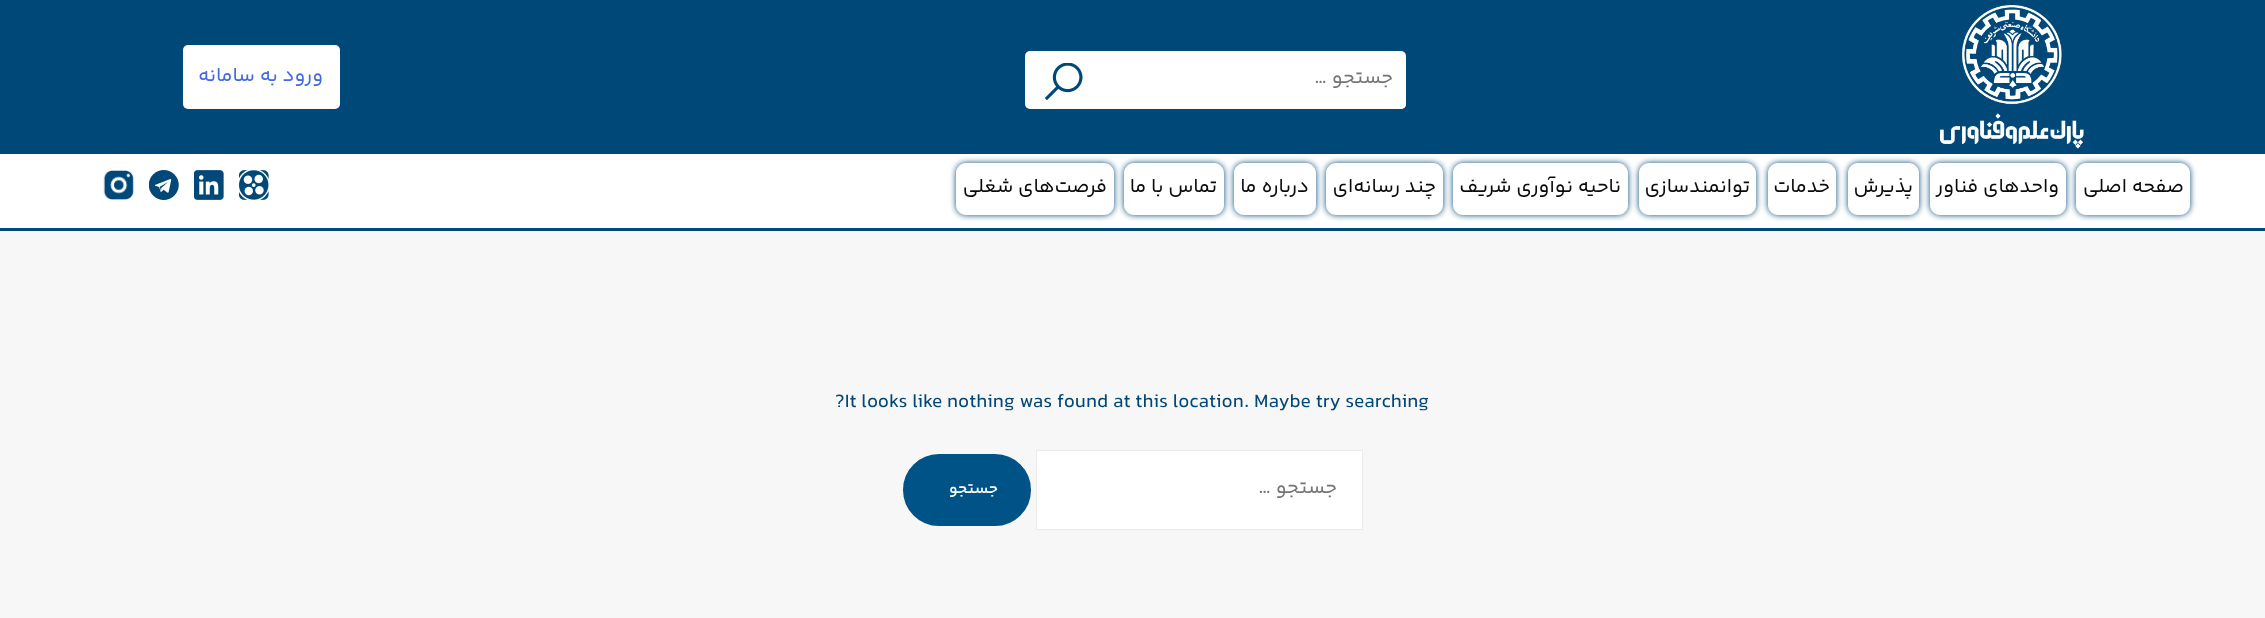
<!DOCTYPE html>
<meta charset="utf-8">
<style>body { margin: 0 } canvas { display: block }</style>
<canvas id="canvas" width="2265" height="618"></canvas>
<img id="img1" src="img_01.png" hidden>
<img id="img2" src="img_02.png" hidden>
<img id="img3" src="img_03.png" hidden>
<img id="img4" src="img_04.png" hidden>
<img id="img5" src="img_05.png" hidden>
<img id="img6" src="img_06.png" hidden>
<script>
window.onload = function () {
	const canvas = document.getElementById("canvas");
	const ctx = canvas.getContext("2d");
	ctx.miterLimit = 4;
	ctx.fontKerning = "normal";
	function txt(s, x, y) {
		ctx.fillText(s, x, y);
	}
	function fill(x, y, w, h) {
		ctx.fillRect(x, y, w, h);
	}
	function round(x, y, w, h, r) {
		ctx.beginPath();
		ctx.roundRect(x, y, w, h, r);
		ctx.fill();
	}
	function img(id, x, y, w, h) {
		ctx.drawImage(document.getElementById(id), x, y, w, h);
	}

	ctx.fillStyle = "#FFFFFF";
	fill(0, 0, 2265, 618);
	ctx.fillStyle = "#004878";
	fill(0, 228, 2265, 3);
	fill(0, 0, 2265, 154);
	img("img1", 1940, 5, 144, 144);
	ctx.fillStyle = "#FFFFFF";
	round(1025, 51, 381, 58, 5);
	ctx.beginPath();
	ctx.roundRect(1108, 54, 298, 55, [0, 5, 5, 0]);
	ctx.fill();
	img("img2", 1045, 63, 38, 37);
	round(183, 45, 157, 64, 5);
	ctx.save();
	ctx.beginPath();
	ctx.moveTo(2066, 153);
	ctx.lineTo(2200, 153);
	ctx.lineTo(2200, 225);
	ctx.lineTo(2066, 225);
	ctx.closePath();
	ctx.moveTo(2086, 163);
	ctx.lineTo(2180, 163);
	ctx.bezierCurveTo(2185.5, 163, 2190, 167.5, 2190, 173);
	ctx.lineTo(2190, 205);
	ctx.bezierCurveTo(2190, 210.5, 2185.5, 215, 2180, 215);
	ctx.lineTo(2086, 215);
	ctx.bezierCurveTo(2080.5, 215, 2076, 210.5, 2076, 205);
	ctx.lineTo(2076, 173);
	ctx.bezierCurveTo(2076, 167.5, 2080.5, 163, 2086, 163);
	ctx.closePath();
	ctx.clip("evenodd");
	ctx.fillStyle = "#004878";
	ctx.filter = "blur(3px)";
	ctx.beginPath();
	ctx.roundRect(2076, 163, 114, 52, 10);
	ctx.fill();
	ctx.filter = "none";
	ctx.restore();
	ctx.save();
	ctx.beginPath();
	ctx.moveTo(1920, 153);
	ctx.lineTo(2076, 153);
	ctx.lineTo(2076, 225);
	ctx.lineTo(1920, 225);
	ctx.closePath();
	ctx.moveTo(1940, 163);
	ctx.lineTo(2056, 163);
	ctx.bezierCurveTo(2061.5, 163, 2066, 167.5, 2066, 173);
	ctx.lineTo(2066, 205);
	ctx.bezierCurveTo(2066, 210.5, 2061.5, 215, 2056, 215);
	ctx.lineTo(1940, 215);
	ctx.bezierCurveTo(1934.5, 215, 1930, 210.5, 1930, 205);
	ctx.lineTo(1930, 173);
	ctx.bezierCurveTo(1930, 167.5, 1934.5, 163, 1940, 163);
	ctx.closePath();
	ctx.clip("evenodd");
	ctx.fillStyle = "#004878";
	ctx.filter = "blur(3px)";
	ctx.beginPath();
	ctx.roundRect(1930, 163, 136, 52, 10);
	ctx.fill();
	ctx.filter = "none";
	ctx.restore();
	ctx.save();
	ctx.beginPath();
	ctx.moveTo(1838, 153);
	ctx.lineTo(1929, 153);
	ctx.lineTo(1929, 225);
	ctx.lineTo(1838, 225);
	ctx.closePath();
	ctx.moveTo(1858, 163);
	ctx.lineTo(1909, 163);
	ctx.bezierCurveTo(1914.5, 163, 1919, 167.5, 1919, 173);
	ctx.lineTo(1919, 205);
	ctx.bezierCurveTo(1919, 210.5, 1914.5, 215, 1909, 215);
	ctx.lineTo(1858, 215);
	ctx.bezierCurveTo(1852.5, 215, 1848, 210.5, 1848, 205);
	ctx.lineTo(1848, 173);
	ctx.bezierCurveTo(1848, 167.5, 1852.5, 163, 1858, 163);
	ctx.closePath();
	ctx.clip("evenodd");
	ctx.fillStyle = "#004878";
	ctx.filter = "blur(3px)";
	ctx.beginPath();
	ctx.roundRect(1848, 163, 71, 52, 10);
	ctx.fill();
	ctx.filter = "none";
	ctx.restore();
	ctx.save();
	ctx.beginPath();
	ctx.moveTo(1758, 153);
	ctx.lineTo(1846, 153);
	ctx.lineTo(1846, 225);
	ctx.lineTo(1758, 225);
	ctx.closePath();
	ctx.moveTo(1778, 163);
	ctx.lineTo(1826, 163);
	ctx.bezierCurveTo(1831.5, 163, 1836, 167.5, 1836, 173);
	ctx.lineTo(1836, 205);
	ctx.bezierCurveTo(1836, 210.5, 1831.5, 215, 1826, 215);
	ctx.lineTo(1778, 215);
	ctx.bezierCurveTo(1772.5, 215, 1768, 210.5, 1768, 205);
	ctx.lineTo(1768, 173);
	ctx.bezierCurveTo(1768, 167.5, 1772.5, 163, 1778, 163);
	ctx.closePath();
	ctx.clip("evenodd");
	ctx.fillStyle = "#004878";
	ctx.filter = "blur(3px)";
	ctx.beginPath();
	ctx.roundRect(1768, 163, 68, 52, 10);
	ctx.fill();
	ctx.filter = "none";
	ctx.restore();
	ctx.save();
	ctx.beginPath();
	ctx.moveTo(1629, 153);
	ctx.lineTo(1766, 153);
	ctx.lineTo(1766, 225);
	ctx.lineTo(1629, 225);
	ctx.closePath();
	ctx.moveTo(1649, 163);
	ctx.lineTo(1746, 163);
	ctx.bezierCurveTo(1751.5, 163, 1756, 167.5, 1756, 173);
	ctx.lineTo(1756, 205);
	ctx.bezierCurveTo(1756, 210.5, 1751.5, 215, 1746, 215);
	ctx.lineTo(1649, 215);
	ctx.bezierCurveTo(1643.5, 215, 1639, 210.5, 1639, 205);
	ctx.lineTo(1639, 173);
	ctx.bezierCurveTo(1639, 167.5, 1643.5, 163, 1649, 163);
	ctx.closePath();
	ctx.clip("evenodd");
	ctx.fillStyle = "#004878";
	ctx.filter = "blur(3px)";
	ctx.beginPath();
	ctx.roundRect(1639, 163, 117, 52, 10);
	ctx.fill();
	ctx.filter = "none";
	ctx.restore();
	ctx.save();
	ctx.beginPath();
	ctx.moveTo(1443, 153);
	ctx.lineTo(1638, 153);
	ctx.lineTo(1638, 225);
	ctx.lineTo(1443, 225);
	ctx.closePath();
	ctx.moveTo(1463, 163);
	ctx.lineTo(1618, 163);
	ctx.bezierCurveTo(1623.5, 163, 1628, 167.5, 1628, 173);
	ctx.lineTo(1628, 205);
	ctx.bezierCurveTo(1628, 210.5, 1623.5, 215, 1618, 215);
	ctx.lineTo(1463, 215);
	ctx.bezierCurveTo(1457.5, 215, 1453, 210.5, 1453, 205);
	ctx.lineTo(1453, 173);
	ctx.bezierCurveTo(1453, 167.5, 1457.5, 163, 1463, 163);
	ctx.closePath();
	ctx.clip("evenodd");
	ctx.fillStyle = "#004878";
	ctx.filter = "blur(3px)";
	ctx.beginPath();
	ctx.roundRect(1453, 163, 175, 52, 10);
	ctx.fill();
	ctx.filter = "none";
	ctx.restore();
	ctx.save();
	ctx.beginPath();
	ctx.moveTo(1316, 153);
	ctx.lineTo(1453, 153);
	ctx.lineTo(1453, 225);
	ctx.lineTo(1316, 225);
	ctx.closePath();
	ctx.moveTo(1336, 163);
	ctx.lineTo(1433, 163);
	ctx.bezierCurveTo(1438.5, 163, 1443, 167.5, 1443, 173);
	ctx.lineTo(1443, 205);
	ctx.bezierCurveTo(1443, 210.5, 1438.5, 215, 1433, 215);
	ctx.lineTo(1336, 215);
	ctx.bezierCurveTo(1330.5, 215, 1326, 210.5, 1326, 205);
	ctx.lineTo(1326, 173);
	ctx.bezierCurveTo(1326, 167.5, 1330.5, 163, 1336, 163);
	ctx.closePath();
	ctx.clip("evenodd");
	ctx.fillStyle = "#004878";
	ctx.filter = "blur(3px)";
	ctx.beginPath();
	ctx.roundRect(1326, 163, 117, 52, 10);
	ctx.fill();
	ctx.filter = "none";
	ctx.restore();
	ctx.save();
	ctx.beginPath();
	ctx.moveTo(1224, 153);
	ctx.lineTo(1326, 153);
	ctx.lineTo(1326, 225);
	ctx.lineTo(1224, 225);
	ctx.closePath();
	ctx.moveTo(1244, 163);
	ctx.lineTo(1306, 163);
	ctx.bezierCurveTo(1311.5, 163, 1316, 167.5, 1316, 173);
	ctx.lineTo(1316, 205);
	ctx.bezierCurveTo(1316, 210.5, 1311.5, 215, 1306, 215);
	ctx.lineTo(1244, 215);
	ctx.bezierCurveTo(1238.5, 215, 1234, 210.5, 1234, 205);
	ctx.lineTo(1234, 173);
	ctx.bezierCurveTo(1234, 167.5, 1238.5, 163, 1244, 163);
	ctx.closePath();
	ctx.clip("evenodd");
	ctx.fillStyle = "#004878";
	ctx.filter = "blur(3px)";
	ctx.beginPath();
	ctx.roundRect(1234, 163, 82, 52, 10);
	ctx.fill();
	ctx.filter = "none";
	ctx.restore();
	ctx.save();
	ctx.beginPath();
	ctx.moveTo(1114, 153);
	ctx.lineTo(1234, 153);
	ctx.lineTo(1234, 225);
	ctx.lineTo(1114, 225);
	ctx.closePath();
	ctx.moveTo(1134, 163);
	ctx.lineTo(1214, 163);
	ctx.bezierCurveTo(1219.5, 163, 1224, 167.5, 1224, 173);
	ctx.lineTo(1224, 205);
	ctx.bezierCurveTo(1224, 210.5, 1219.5, 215, 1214, 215);
	ctx.lineTo(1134, 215);
	ctx.bezierCurveTo(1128.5, 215, 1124, 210.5, 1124, 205);
	ctx.lineTo(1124, 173);
	ctx.bezierCurveTo(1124, 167.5, 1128.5, 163, 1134, 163);
	ctx.closePath();
	ctx.clip("evenodd");
	ctx.fillStyle = "#004878";
	ctx.filter = "blur(3px)";
	ctx.beginPath();
	ctx.roundRect(1124, 163, 100, 52, 10);
	ctx.fill();
	ctx.filter = "none";
	ctx.restore();
	ctx.save();
	ctx.beginPath();
	ctx.moveTo(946, 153);
	ctx.lineTo(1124, 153);
	ctx.lineTo(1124, 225);
	ctx.lineTo(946, 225);
	ctx.closePath();
	ctx.moveTo(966, 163);
	ctx.lineTo(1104, 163);
	ctx.bezierCurveTo(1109.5, 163, 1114, 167.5, 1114, 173);
	ctx.lineTo(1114, 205);
	ctx.bezierCurveTo(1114, 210.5, 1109.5, 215, 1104, 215);
	ctx.lineTo(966, 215);
	ctx.bezierCurveTo(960.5, 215, 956, 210.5, 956, 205);
	ctx.lineTo(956, 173);
	ctx.bezierCurveTo(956, 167.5, 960.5, 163, 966, 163);
	ctx.closePath();
	ctx.clip("evenodd");
	ctx.fillStyle = "#004878";
	ctx.filter = "blur(3px)";
	ctx.beginPath();
	ctx.roundRect(956, 163, 158, 52, 10);
	ctx.fill();
	ctx.filter = "none";
	ctx.restore();
	img("img3", 239, 170, 30, 30);
	img("img4", 194, 170, 30, 30);
	img("img5", 149, 170, 30, 30);
	img("img6", 103, 170, 31, 30);
	ctx.fillStyle = "#F7F7F7";
	fill(0, 231, 2265, 387);
	ctx.fillStyle = "#FFFFFF";
	ctx.beginPath();
	ctx.rect(1036.5, 450.5, 326, 79);
	ctx.fill();
	ctx.strokeStyle = "#EBEBEB";
	ctx.stroke();
	ctx.fillStyle = "#005387";
	ctx.beginPath();
	ctx.roundRect(904.5, 455.5, 125, 69, 34.5);
	ctx.fill();
	ctx.strokeStyle = "#005387";
	ctx.lineWidth = 3;
	ctx.stroke();
	ctx.direction = "rtl";
	ctx.font = "20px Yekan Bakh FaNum";
	ctx.fillStyle = "#757575";
	txt("جستجو …", 1393, 83);
	ctx.fillStyle = "#4169E1";
	txt("ورود به سامانه", 323, 81);
	ctx.fillStyle = "#0A0A0A";
	txt("صفحه اصلی", 2184, 192);
	txt("واحدهای فناور", 2059, 192);
	txt("پذیرش", 1913, 192);
	txt("خدمات", 1830, 192);
	txt("توانمندسازی", 1750, 192);
	txt("ناحیه نوآوری شریف", 1621, 192);
	txt("چند رسانه‌ای", 1436, 192);
	txt("درباره ما", 1309, 192);
	txt("تماس با ما", 1217, 192);
	txt("فرصت‌های شغلی", 1107, 192);
	ctx.direction = "ltr";
	ctx.fillStyle = "#004878";
	txt("?It looks like nothing was found at this location. Maybe try searching", 835, 407);
	ctx.direction = "rtl";
	ctx.fillStyle = "#757575";
	txt("جستجو …", 1337, 493);
	ctx.letterSpacing = "1.25px";
	ctx.font = "600 16px Yekan Bakh FaNum";
	ctx.fillStyle = "#FFFFFF";
	txt("جستجو", 998, 493);
};
</script>
